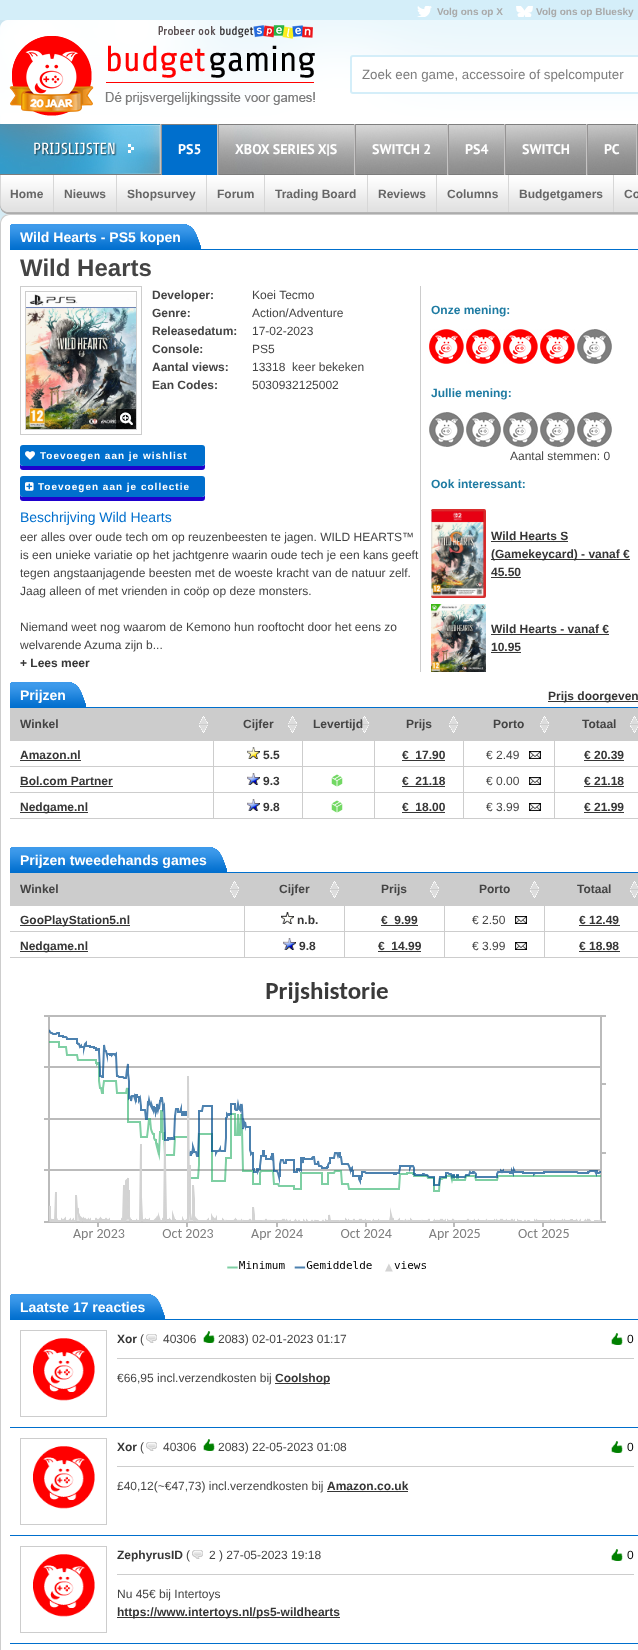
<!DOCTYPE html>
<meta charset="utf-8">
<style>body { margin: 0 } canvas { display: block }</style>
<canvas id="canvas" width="638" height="1650"></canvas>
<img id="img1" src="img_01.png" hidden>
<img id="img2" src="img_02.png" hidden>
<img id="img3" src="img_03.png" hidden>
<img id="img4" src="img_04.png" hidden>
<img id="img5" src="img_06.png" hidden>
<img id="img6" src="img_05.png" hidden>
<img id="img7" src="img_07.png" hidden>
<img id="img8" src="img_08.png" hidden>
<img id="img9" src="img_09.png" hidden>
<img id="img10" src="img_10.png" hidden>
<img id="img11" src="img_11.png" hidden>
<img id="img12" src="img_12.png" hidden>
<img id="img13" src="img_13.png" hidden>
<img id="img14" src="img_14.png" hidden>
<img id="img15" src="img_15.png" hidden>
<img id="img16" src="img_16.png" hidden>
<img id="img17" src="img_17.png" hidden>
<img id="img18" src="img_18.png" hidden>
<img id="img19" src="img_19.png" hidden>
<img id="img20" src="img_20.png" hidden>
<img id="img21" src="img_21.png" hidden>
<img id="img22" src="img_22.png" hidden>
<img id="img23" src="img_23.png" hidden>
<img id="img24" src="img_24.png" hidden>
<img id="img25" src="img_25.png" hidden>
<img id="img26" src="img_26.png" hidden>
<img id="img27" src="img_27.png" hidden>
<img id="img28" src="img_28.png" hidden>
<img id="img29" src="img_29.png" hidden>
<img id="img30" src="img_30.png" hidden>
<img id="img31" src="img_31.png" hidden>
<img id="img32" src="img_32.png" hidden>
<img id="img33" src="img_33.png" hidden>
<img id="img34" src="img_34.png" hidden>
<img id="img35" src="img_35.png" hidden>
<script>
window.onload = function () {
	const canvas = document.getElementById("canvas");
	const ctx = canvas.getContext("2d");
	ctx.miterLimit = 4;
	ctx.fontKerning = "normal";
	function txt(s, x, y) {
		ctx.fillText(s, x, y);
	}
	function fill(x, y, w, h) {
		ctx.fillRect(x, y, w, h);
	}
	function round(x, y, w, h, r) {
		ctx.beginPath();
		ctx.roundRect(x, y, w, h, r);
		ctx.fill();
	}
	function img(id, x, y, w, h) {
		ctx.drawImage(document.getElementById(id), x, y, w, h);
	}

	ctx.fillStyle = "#FFFFFF";
	fill(0, 0, 638, 1650);
	img("img1", 0, 0, 638, 224);
	img("img2", 417, 6, 15, 11);
	img("img3", 516, 6, 17, 11);
	img("img4", 0, 20, 638, 104);
	img("img5", 9, 36, 306, 80);
	img("img6", 158, 25, 155, 14);
	ctx.beginPath();
	ctx.roundRect(351, 56, 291, 37, 2);
	ctx.fill();
	ctx.strokeStyle = "#D4EEF9";
	ctx.lineWidth = 2;
	ctx.stroke();
	img("img7", 0, 124, 636, 50);
	ctx.fillStyle = "#C4C3C3";
	fill(160, 124, 1, 50);
	img("img8", 0, 174, 638, 40);
	fill(217, 124, 1, 51);
	ctx.fillStyle = "#969494";
	fill(161, 124, 1, 51);
	ctx.fillStyle = "#006FCD";
	fill(162, 125, 55, 50);
	ctx.fillStyle = "#C4C3C3";
	fill(354, 124, 1, 51);
	ctx.fillStyle = "#969494";
	fill(218, 124, 1, 51);
	ctx.fillStyle = "#807E7E";
	fill(234, 124, 22, 1);
	ctx.fillStyle = "#C4C3C3";
	fill(447, 124, 1, 51);
	ctx.fillStyle = "#969494";
	fill(355, 124, 1, 51);
	ctx.fillStyle = "#C4C3C3";
	fill(504, 124, 1, 51);
	ctx.fillStyle = "#969494";
	fill(448, 124, 1, 51);
	ctx.fillStyle = "#C4C3C3";
	fill(586, 124, 1, 51);
	ctx.fillStyle = "#969494";
	fill(505, 124, 1, 51);
	ctx.fillStyle = "#C4C3C3";
	fill(636, 124, 1, 51);
	ctx.fillStyle = "#969494";
	fill(587, 124, 1, 51);
	fill(637, 124, 1, 51);
	ctx.fillStyle = "#D7D7D7";
	fill(53, 175, 1, 37);
	fill(116, 175, 1, 37);
	fill(206, 175, 1, 37);
	fill(264, 175, 1, 37);
	fill(367, 175, 1, 37);
	fill(436, 175, 1, 37);
	fill(508, 175, 1, 37);
	fill(613, 175, 1, 37);
	ctx.fillStyle = "#FFFFFF";
	ctx.beginPath();
	ctx.moveTo(10, 214);
	ctx.lineTo(638, 214);
	ctx.bezierCurveTo(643.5, 214, 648, 218.5, 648, 224);
	ctx.lineTo(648, 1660);
	ctx.lineTo(0, 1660);
	ctx.lineTo(0, 224);
	ctx.bezierCurveTo(0, 218.5, 4.5, 214, 10, 214);
	ctx.closePath();
	ctx.fill();
	ctx.fillStyle = "#CDCDCD";
	ctx.beginPath();
	ctx.moveTo(10, 214);
	ctx.lineTo(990, 214);
	ctx.bezierCurveTo(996, 214, 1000, 218, 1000, 224);
	ctx.lineTo(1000, 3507);
	ctx.lineTo(0, 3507);
	ctx.lineTo(0, 224);
	ctx.bezierCurveTo(0, 218, 4, 214, 10, 214);
	ctx.closePath();
	ctx.moveTo(10, 215);
	ctx.lineTo(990, 215);
	ctx.bezierCurveTo(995, 215, 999, 219, 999, 224);
	ctx.lineTo(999, 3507);
	ctx.lineTo(1, 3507);
	ctx.lineTo(1, 224);
	ctx.bezierCurveTo(1, 219, 5, 215, 10, 215);
	ctx.closePath();
	ctx.fill("evenodd");
	ctx.fillStyle = "#006FCD";
	fill(10, 249, 628, 1);
	img("img9", 20, 224, 181, 25);
	img("img10", 10, 224, 10, 25);
	ctx.strokeStyle = "#CDCDCD";
	ctx.lineWidth = 1;
	ctx.strokeRect(20.5, 286.5, 121, 148);
	ctx.strokeRect(25.5, 291.5, 111, 138);
	img("img11", 26, 294, 110, 135);
	img("img12", 116, 409, 20, 20);
	ctx.fillStyle = "#1F00CD";
	ctx.beginPath();
	ctx.moveTo(20, 463);
	ctx.lineTo(20, 467);
	ctx.bezierCurveTo(20, 469, 21, 470, 23, 470);
	ctx.lineTo(202, 470);
	ctx.bezierCurveTo(204, 470, 205, 469, 205, 467);
	ctx.lineTo(205, 463);
	ctx.bezierCurveTo(205, 465, 204, 466, 202, 466);
	ctx.lineTo(23, 466);
	ctx.bezierCurveTo(21, 466, 20, 465, 20, 463);
	ctx.closePath();
	ctx.fill();
	ctx.fillStyle = "#006FCD";
	round(20, 445, 185, 21, 3);
	img("img13", 25, 451, 10, 9);
	ctx.fillStyle = "#1F00CD";
	ctx.beginPath();
	ctx.moveTo(20, 494);
	ctx.lineTo(20, 498);
	ctx.bezierCurveTo(20, 500, 21, 501, 23, 501);
	ctx.lineTo(202, 501);
	ctx.bezierCurveTo(204, 501, 205, 500, 205, 498);
	ctx.lineTo(205, 494);
	ctx.bezierCurveTo(205, 496, 204, 497, 202, 497);
	ctx.lineTo(23, 497);
	ctx.bezierCurveTo(21, 497, 20, 496, 20, 494);
	ctx.closePath();
	ctx.fill();
	ctx.fillStyle = "#006FCD";
	round(20, 476, 185, 21, 3);
	img("img14", 25, 482, 9, 9);
	ctx.fillStyle = "#CCCCCC";
	fill(420, 286, 1, 386);
	img("img15", 429, 329, 35, 35);
	img("img15", 466, 329, 35, 35);
	img("img15", 503, 329, 35, 35);
	img("img15", 540, 329, 35, 35);
	img("img16", 577, 329, 35, 35);
	img("img16", 429, 412, 35, 35);
	img("img16", 466, 412, 35, 35);
	img("img16", 503, 412, 35, 35);
	img("img16", 540, 412, 35, 35);
	img("img16", 577, 412, 35, 35);
	img("img17", 431, 509, 55, 89);
	ctx.fillStyle = "#363636";
	fill(491, 541, 77, 1);
	fill(491, 559, 139, 1);
	fill(491, 577, 30, 1);
	img("img18", 431, 604, 55, 68);
	fill(491, 634, 118, 1);
	fill(491, 652, 30, 1);
	ctx.fillStyle = "#006FCD";
	fill(10, 707, 628, 1);
	img("img19", 20, 682, 66, 25);
	img("img10", 10, 682, 10, 25);
	ctx.fillStyle = "#363636";
	fill(548, 701, 90, 1);
	ctx.fillStyle = "#CDCDCD";
	fill(554, 818, 84, 1);
	fill(554, 792, 1, 27);
	fill(554, 792, 84, 1);
	fill(554, 766, 1, 27);
	fill(554, 766, 84, 1);
	fill(554, 740, 1, 27);
	fill(463, 818, 92, 1);
	fill(463, 792, 1, 27);
	fill(463, 792, 92, 1);
	fill(463, 766, 1, 27);
	fill(463, 766, 92, 1);
	fill(463, 740, 1, 27);
	fill(374, 818, 90, 1);
	fill(374, 792, 1, 27);
	fill(374, 792, 90, 1);
	fill(374, 766, 1, 27);
	fill(374, 766, 90, 1);
	fill(374, 740, 1, 27);
	fill(302, 818, 73, 1);
	fill(302, 792, 1, 27);
	fill(302, 792, 73, 1);
	fill(302, 766, 1, 27);
	fill(302, 766, 73, 1);
	fill(302, 740, 1, 27);
	fill(213, 818, 90, 1);
	fill(213, 792, 1, 27);
	fill(213, 792, 90, 1);
	fill(213, 766, 1, 27);
	fill(213, 766, 90, 1);
	fill(213, 740, 1, 27);
	ctx.fillStyle = "#CCCCCC";
	fill(10, 708, 628, 33);
	img("img20", 199, 716, 9, 17);
	img("img20", 288, 716, 9, 17);
	img("img20", 360, 716, 9, 17);
	img("img20", 449, 716, 9, 17);
	img("img20", 540, 716, 9, 17);
	img("img21", 630, 716, 8, 17);
	ctx.fillStyle = "#CDCDCD";
	fill(10, 766, 204, 1);
	ctx.fillStyle = "#363636";
	fill(20, 760, 61, 1);
	img("img22", 247, 747, 13, 12);
	fill(402, 760, 43, 1);
	img("img23", 529, 751, 12, 8);
	fill(584, 760, 40, 1);
	ctx.fillStyle = "#CDCDCD";
	fill(10, 792, 204, 1);
	ctx.fillStyle = "#363636";
	fill(20, 786, 93, 1);
	img("img24", 247, 773, 13, 12);
	img("img25", 331, 774, 12, 13);
	fill(402, 786, 43, 1);
	img("img23", 529, 777, 12, 8);
	fill(584, 786, 40, 1);
	ctx.fillStyle = "#CDCDCD";
	fill(10, 818, 204, 1);
	ctx.fillStyle = "#363636";
	fill(20, 812, 68, 1);
	img("img24", 247, 799, 13, 12);
	img("img25", 331, 800, 12, 13);
	fill(402, 812, 43, 1);
	img("img23", 529, 803, 12, 8);
	fill(584, 812, 40, 1);
	ctx.fillStyle = "#006FCD";
	fill(10, 872, 628, 1);
	img("img26", 20, 847, 207, 25);
	img("img10", 10, 847, 10, 25);
	ctx.fillStyle = "#CDCDCD";
	fill(544, 957, 94, 1);
	fill(544, 931, 1, 27);
	fill(544, 931, 94, 1);
	fill(544, 905, 1, 27);
	fill(444, 957, 101, 1);
	fill(444, 931, 1, 27);
	fill(444, 931, 101, 1);
	fill(444, 905, 1, 27);
	fill(344, 957, 101, 1);
	fill(344, 931, 1, 27);
	fill(344, 931, 101, 1);
	fill(344, 905, 1, 27);
	fill(244, 957, 101, 1);
	fill(244, 931, 1, 27);
	fill(244, 931, 101, 1);
	fill(244, 905, 1, 27);
	ctx.fillStyle = "#CCCCCC";
	fill(10, 873, 628, 33);
	img("img20", 230, 881, 9, 17);
	img("img20", 330, 881, 9, 17);
	img("img20", 430, 881, 9, 17);
	img("img20", 530, 881, 9, 17);
	img("img21", 630, 881, 8, 17);
	ctx.fillStyle = "#CDCDCD";
	fill(10, 931, 235, 1);
	ctx.fillStyle = "#363636";
	fill(20, 925, 110, 1);
	img("img27", 281, 912, 13, 12);
	fill(381, 925, 37, 1);
	img("img23", 515, 916, 12, 8);
	fill(579, 925, 41, 1);
	ctx.fillStyle = "#CDCDCD";
	fill(10, 957, 235, 1);
	ctx.fillStyle = "#363636";
	fill(20, 951, 68, 1);
	img("img28", 283, 938, 13, 12);
	fill(378, 951, 43, 1);
	img("img23", 515, 942, 12, 8);
	fill(579, 951, 41, 1);
	img("img29", 44, 982, 562, 290);
	ctx.fillStyle = "#006FCD";
	fill(10, 1319, 628, 1);
	img("img30", 20, 1294, 145, 25);
	img("img31", 10, 1294, 10, 25);
	fill(10, 1427, 628, 1);
	ctx.strokeRect(20.5, 1330.5, 86, 86);
	img("img32", 33, 1338, 62, 63);
	ctx.fillStyle = "#CDCDCD";
	fill(117, 1358, 517, 1);
	img("img33", 146, 1334, 11, 9);
	img("img34", 203, 1331, 12, 12);
	img("img34", 611, 1333, 12, 12);
	ctx.fillStyle = "#363636";
	fill(275, 1383, 55, 1);
	ctx.fillStyle = "#006FCD";
	fill(10, 1535, 628, 1);
	ctx.strokeRect(20.5, 1438.5, 86, 86);
	img("img32", 33, 1446, 62, 63);
	ctx.fillStyle = "#CDCDCD";
	fill(117, 1466, 517, 1);
	img("img33", 146, 1442, 11, 9);
	img("img34", 203, 1439, 12, 12);
	img("img34", 611, 1441, 12, 12);
	ctx.fillStyle = "#363636";
	fill(327, 1491, 81, 1);
	ctx.fillStyle = "#006FCD";
	fill(10, 1643, 628, 1);
	ctx.strokeRect(20.5, 1546.5, 86, 86);
	img("img35", 33, 1554, 62, 63);
	ctx.fillStyle = "#CDCDCD";
	fill(117, 1574, 517, 1);
	img("img33", 192, 1550, 11, 9);
	img("img34", 611, 1549, 12, 12);
	ctx.fillStyle = "#363636";
	fill(117, 1617, 223, 1);
	ctx.font = "bold 10px Liberation Sans";
	ctx.fillStyle = "#A9A9A9";
	txt("Volg ons op X", 437, 15);
	txt("Volg ons op Bluesky", 536, 15);
	ctx.font = "13.3px Liberation Sans";
	ctx.fillStyle = "#7D7D7D";
	txt("Zoek een game, accessoire of spelcomputer", 362, 79);
	ctx.font = "bold 14px PT Sans";
	ctx.fillStyle = "#FFFFFF";
	txt("PS5", 178, 154);
	txt("XBOX SERIES X|S", 235, 154);
	txt("SWITCH 2", 372, 154);
	txt("PS4", 465, 154);
	txt("SWITCH", 522, 154);
	txt("PC", 604, 154);
	ctx.font = "bold 12px Liberation Sans";
	ctx.fillStyle = "#666666";
	txt("Home", 10, 198);
	txt("Nieuws", 64, 198);
	txt("Shopsurvey", 127, 198);
	txt("Forum", 217, 198);
	txt("Trading Board", 275, 198);
	txt("Reviews", 378, 198);
	txt("Columns", 447, 198);
	txt("Budgetgamers", 519, 198);
	txt("Co", 624, 198);
	ctx.font = "bold 14px Liberation Sans";
	ctx.fillStyle = "#FFFFFF";
	txt("Wild Hearts - PS5 kopen", 20, 242);
	ctx.font = "bold 24px Liberation Sans";
	ctx.fillStyle = "#444444";
	txt("Wild Hearts", 20, 276);
	ctx.font = "bold 12px Liberation Sans";
	txt("Developer:", 152, 299);
	ctx.font = "12px Liberation Sans";
	txt("Koei Tecmo", 252, 299);
	ctx.font = "bold 12px Liberation Sans";
	txt("Genre:", 152, 317);
	ctx.font = "12px Liberation Sans";
	txt("Action/Adventure", 252, 317);
	ctx.font = "bold 12px Liberation Sans";
	txt("Releasedatum:", 152, 335);
	ctx.font = "12px Liberation Sans";
	txt("17-02-2023", 252, 335);
	ctx.font = "bold 12px Liberation Sans";
	txt("Console:", 152, 353);
	ctx.font = "12px Liberation Sans";
	txt("PS5", 252, 353);
	ctx.font = "bold 12px Liberation Sans";
	txt("Aantal views:", 152, 371);
	ctx.font = "12px Liberation Sans";
	txt("13318  keer bekeken", 252, 371);
	ctx.font = "bold 12px Liberation Sans";
	txt("Ean Codes:", 152, 389);
	ctx.font = "12px Liberation Sans";
	txt("5030932125002", 252, 389);
	ctx.letterSpacing = "1px";
	ctx.font = "bold 10px Liberation Sans";
	ctx.fillStyle = "#FFFFFF";
	txt("Toevoegen aan je wishlist", 40, 459);
	txt("Toevoegen aan je collectie", 38, 490);
	ctx.letterSpacing = "0px";
	ctx.font = "14px Liberation Sans";
	ctx.fillStyle = "#006FCD";
	txt("Beschrijving Wild Hearts", 20, 522);
	ctx.font = "12px Liberation Sans";
	ctx.fillStyle = "#444444";
	txt("eer alles over oude tech om op reuzenbeesten te jagen. WILD HEARTS™", 20, 541);
	txt("is een unieke variatie op het jachtgenre waarin oude tech je een kans geeft", 20, 559);
	txt("tegen angstaanjagende beesten met de woeste kracht van de natuur zelf.", 20, 577);
	txt("Jaag alleen of met vrienden in coöp op deze monsters.", 20, 595);
	txt("Niemand weet nog waarom de Kemono hun rooftocht door het eens zo", 20, 631);
	txt("welvarende Azuma zijn b...", 20, 649);
	ctx.font = "bold 12px Liberation Sans";
	ctx.fillStyle = "#363636";
	txt("+ Lees meer", 20, 667);
	ctx.fillStyle = "#1E7BA2";
	txt("Onze mening:", 431, 314);
	txt("Jullie mening:", 431, 397);
	ctx.font = "12px Liberation Sans";
	ctx.fillStyle = "#444444";
	txt("Aantal stemmen: 0", 510, 460);
	ctx.font = "bold 12px Liberation Sans";
	ctx.fillStyle = "#1E7BA2";
	txt("Ook interessant:", 431, 488);
	ctx.fillStyle = "#363636";
	txt("Wild Hearts S", 491, 540);
	txt("(Gamekeycard) - vanaf €", 491, 558);
	txt("45.50", 491, 576);
	txt("Wild Hearts - vanaf €", 491, 633);
	txt("10.95", 491, 651);
	ctx.font = "bold 14px Liberation Sans";
	ctx.fillStyle = "#FFFFFF";
	txt("Prijzen", 20, 700);
	ctx.font = "bold 12px Liberation Sans";
	ctx.fillStyle = "#363636";
	txt("Prijs doorgeven", 548, 700);
	ctx.fillStyle = "#444444";
	txt("Winkel", 20, 728);
	txt("Cijfer", 243, 728);
	txt("Levertijd", 313, 728);
	txt("Prijs", 406, 728);
	txt("Porto", 493, 728);
	txt("Totaal", 582, 728);
	ctx.fillStyle = "#363636";
	txt("Amazon.nl", 20, 759);
	txt("5.5", 263, 759);
	txt("€  17.90", 402, 759);
	ctx.font = "12px Liberation Sans";
	ctx.fillStyle = "#444444";
	txt("€ 2.49", 486, 759);
	ctx.font = "bold 12px Liberation Sans";
	ctx.fillStyle = "#363636";
	txt("€ 20.39", 584, 759);
	txt("Bol.com Partner", 20, 785);
	txt("9.3", 263, 785);
	txt("€  21.18", 402, 785);
	ctx.font = "12px Liberation Sans";
	ctx.fillStyle = "#444444";
	txt("€ 0.00", 486, 785);
	ctx.font = "bold 12px Liberation Sans";
	ctx.fillStyle = "#363636";
	txt("€ 21.18", 584, 785);
	txt("Nedgame.nl", 20, 811);
	txt("9.8", 263, 811);
	txt("€  18.00", 402, 811);
	ctx.font = "12px Liberation Sans";
	ctx.fillStyle = "#444444";
	txt("€ 3.99", 486, 811);
	ctx.font = "bold 12px Liberation Sans";
	ctx.fillStyle = "#363636";
	txt("€ 21.99", 584, 811);
	ctx.font = "bold 14px Liberation Sans";
	ctx.fillStyle = "#FFFFFF";
	txt("Prijzen tweedehands games", 20, 865);
	ctx.font = "bold 12px Liberation Sans";
	ctx.fillStyle = "#444444";
	txt("Winkel", 20, 893);
	txt("Cijfer", 279, 893);
	txt("Prijs", 381, 893);
	txt("Porto", 479, 893);
	txt("Totaal", 577, 893);
	ctx.fillStyle = "#363636";
	txt("GooPlayStation5.nl", 20, 924);
	txt("n.b.", 297, 924);
	txt("€  9.99", 381, 924);
	ctx.font = "12px Liberation Sans";
	ctx.fillStyle = "#444444";
	txt("€ 2.50", 472, 924);
	ctx.font = "bold 12px Liberation Sans";
	ctx.fillStyle = "#363636";
	txt("€ 12.49", 579, 924);
	txt("Nedgame.nl", 20, 950);
	txt("9.8", 299, 950);
	txt("€  14.99", 378, 950);
	ctx.font = "12px Liberation Sans";
	ctx.fillStyle = "#444444";
	txt("€ 3.99", 472, 950);
	ctx.font = "bold 12px Liberation Sans";
	ctx.fillStyle = "#363636";
	txt("€ 18.98", 579, 950);
	ctx.font = "bold 14px Liberation Sans";
	ctx.fillStyle = "#FFFFFF";
	txt("Laatste 17 reacties", 20, 1312);
	ctx.font = "bold 12px Liberation Sans";
	ctx.fillStyle = "#363636";
	txt("Xor", 117, 1343);
	ctx.font = "12px Liberation Sans";
	ctx.fillStyle = "#444444";
	txt("(", 140, 1343);
	txt("40306", 163, 1343);
	txt("2083) 02-01-2023 01:17", 218, 1343);
	ctx.fillStyle = "#000000";
	txt("0", 627, 1343);
	ctx.fillStyle = "#444444";
	txt("€66,95 incl.verzendkosten bij", 117, 1382);
	ctx.font = "bold 12px Liberation Sans";
	ctx.fillStyle = "#363636";
	txt("Coolshop", 275, 1382);
	txt("Xor", 117, 1451);
	ctx.font = "12px Liberation Sans";
	ctx.fillStyle = "#444444";
	txt("(", 140, 1451);
	txt("40306", 163, 1451);
	txt("2083) 22-05-2023 01:08", 218, 1451);
	ctx.fillStyle = "#000000";
	txt("0", 627, 1451);
	ctx.fillStyle = "#444444";
	txt("£40,12(~€47,73) incl.verzendkosten bij", 117, 1490);
	ctx.font = "bold 12px Liberation Sans";
	ctx.fillStyle = "#363636";
	txt("Amazon.co.uk", 327, 1490);
	txt("ZephyrusID", 117, 1559);
	ctx.font = "12px Liberation Sans";
	ctx.fillStyle = "#444444";
	txt("(", 186, 1559);
	txt("2 ) 27-05-2023 19:18", 209, 1559);
	ctx.fillStyle = "#000000";
	txt("0", 627, 1559);
	ctx.fillStyle = "#444444";
	txt("Nu 45€ bij Intertoys", 117, 1598);
	ctx.font = "bold 12px Liberation Sans";
	ctx.fillStyle = "#363636";
	txt("https://www.intertoys.nl/ps5-wildhearts", 117, 1616);
};
</script>
